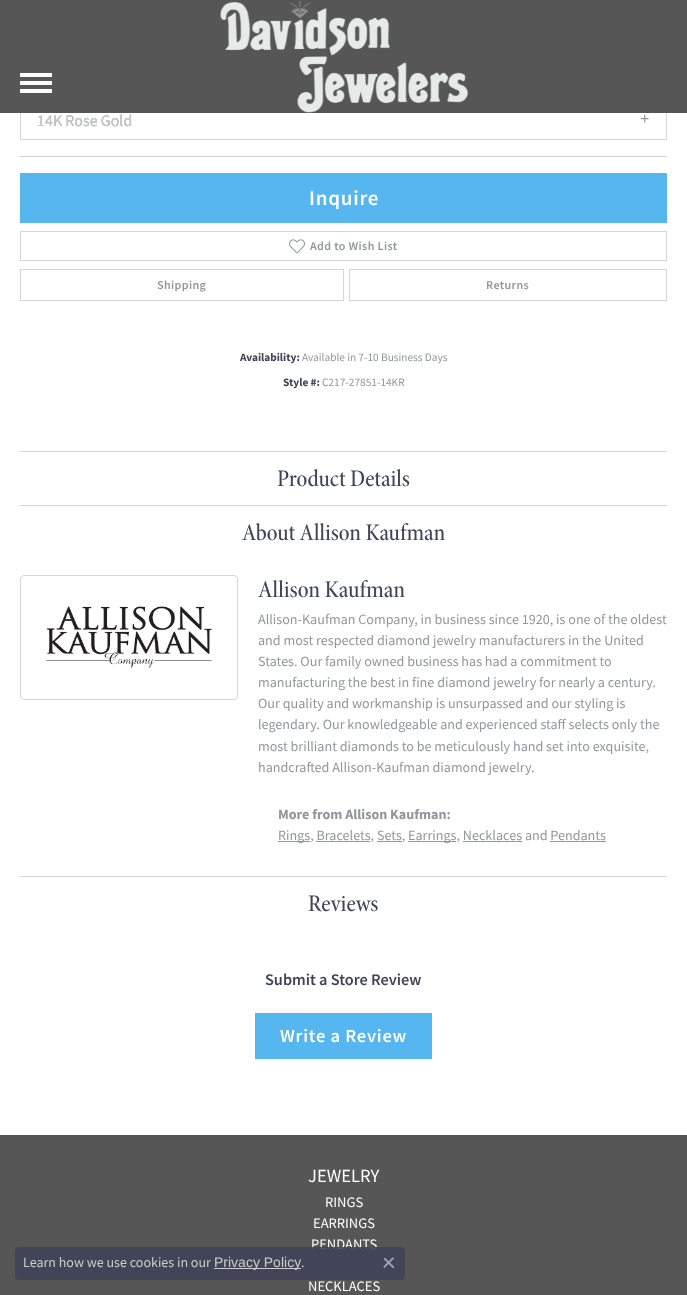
<!DOCTYPE html>
<meta charset="utf-8">
<style>body { margin: 0 } canvas { display: block }</style>
<canvas id="canvas" width="687" height="1295"></canvas>
<img id="img1" src="img_01.png" hidden>
<img id="img2" src="img_02.png" hidden>
<img id="img3" src="img_03.png" hidden>
<img id="img4" src="img_04.png" hidden>
<script>
window.onload = function () {
	const canvas = document.getElementById("canvas");
	const ctx = canvas.getContext("2d");
	ctx.miterLimit = 4;
	ctx.fontKerning = "normal";
	function txt(s, x, y) {
		ctx.fillText(s, x, y);
	}
	function fill(x, y, w, h) {
		ctx.fillRect(x, y, w, h);
	}
	function round(x, y, w, h, r) {
		ctx.beginPath();
		ctx.roundRect(x, y, w, h, r);
		ctx.fill();
	}
	function img(id, x, y, w, h) {
		ctx.drawImage(document.getElementById(id), x, y, w, h);
	}

	ctx.fillStyle = "#565656";
	fill(0, 0, 687, 1295);
	ctx.fillStyle = "#FFFFFF";
	fill(0, 113, 687, 1022);
	ctx.strokeStyle = "#D5D5D5";
	ctx.strokeRect(20.5, 100.5, 646, 39);
	ctx.fillStyle = "#565656";
	fill(20, 100, 647, 13);
	ctx.fillStyle = "#FFFFFF";
	fill(20, 73, 32, 4);
	fill(20, 81, 32, 4);
	fill(20, 89, 32, 4);
	img("img1", 220, 1, 249, 112);
	ctx.fillStyle = "#D2D2D2";
	fill(20, 156, 647, 1);
	ctx.fillStyle = "#56B6EF";
	fill(20, 173, 647, 50);
	ctx.strokeRect(20.5, 231.5, 646, 29);
	img("img2", 289, 239, 16, 15);
	ctx.strokeRect(20.5, 269.5, 323, 31);
	ctx.strokeRect(349.5, 269.5, 317, 31);
	ctx.fillStyle = "#D5D5D5";
	fill(20, 451, 647, 1);
	fill(20, 505, 647, 1);
	ctx.beginPath();
	ctx.roundRect(20.5, 575.5, 217, 124, 3.5);
	ctx.stroke();
	img("img3", 46, 606, 166, 62);
	ctx.fillStyle = "#93969F";
	fill(278, 841, 32, 1);
	fill(316, 841, 54, 1);
	fill(377, 841, 25, 1);
	fill(408, 841, 48, 1);
	fill(463, 841, 59, 1);
	fill(550, 841, 56, 1);
	ctx.fillStyle = "#D5D5D5";
	fill(20, 876, 647, 1);
	ctx.fillStyle = "#56B6EF";
	fill(255, 1013, 177, 46);
	ctx.font = "16px Source Sans Pro";
	ctx.fillStyle = "#93969F";
	txt("14K Rose Gold", 37, 126);
	ctx.font = "16px Liberation Sans";
	txt("+", 640, 124);
	ctx.font = "16px Source Sans Pro";
	ctx.fillStyle = "#C5C7CB";
	txt("14K Rose Gold", 37, 126);
	ctx.letterSpacing = "0.75px";
	ctx.font = "600 21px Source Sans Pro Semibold";
	ctx.fillStyle = "#FEFEFE";
	txt("Inquire", 309, 205);
	ctx.letterSpacing = "0.4px";
	ctx.font = "600 12px Source Sans Pro Semibold";
	ctx.fillStyle = "#93969F";
	txt("Add to Wish List", 310, 250);
	txt("Shipping", 157, 289);
	txt("Returns", 486, 289);
	ctx.letterSpacing = "0px";
	ctx.font = "bold 11.3px Source Sans Pro";
	ctx.fillStyle = "#404458";
	txt("Availability:", 240, 361);
	ctx.font = "11.3px Source Sans Pro";
	ctx.fillStyle = "#93969F";
	txt("Available in 7-10 Business Days", 302, 361);
	ctx.font = "bold 11.3px Source Sans Pro";
	ctx.fillStyle = "#404458";
	txt("Style #:", 283, 386);
	ctx.font = "11.3px Source Sans Pro";
	ctx.fillStyle = "#93969F";
	txt("C217-27851-14KR", 322, 386);
	ctx.font = "500 24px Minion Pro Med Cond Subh";
	ctx.fillStyle = "#404458";
	txt("Product Details", 277, 486);
	txt("About Allison Kaufman", 242, 540);
	ctx.font = "500 24.25px Minion Pro Med Cond Subh";
	txt("Allison Kaufman", 258, 597);
	ctx.font = "14.1px Source Sans Pro";
	ctx.fillStyle = "#93969F";
	txt("Allison-Kaufman Company, in business since 1920, is one of the oldest", 258, 624);
	txt("and most respected diamond jewelry manufacturers in the United", 258, 645);
	txt("States. Our family owned business has had a commitment to", 258, 666);
	txt("manufacturing the best in fine diamond jewelry for nearly a century.", 258, 687);
	txt("Our quality and workmanship is unsurpassed and our styling is", 258, 708);
	txt("legendary. Our knowledgeable and experienced staff selects only the", 258, 729);
	txt("most brilliant diamonds to be meticulously hand set into exquisite,", 258, 751);
	txt("handcrafted Allison-Kaufman diamond jewelry.", 258, 772);
	ctx.font = "bold 14.1px Source Sans Pro";
	txt("More from Allison Kaufman:", 278, 819);
	ctx.font = "14.1px Source Sans Pro";
	txt("Rings, Bracelets, Sets,", 278, 840);
	txt("Earrings, Necklaces and Pendants", 408, 840);
	ctx.font = "500 24px Minion Pro Med Cond Subh";
	ctx.fillStyle = "#404458";
	txt("Reviews", 308, 911);
	ctx.font = "600 16.25px Source Sans Pro Semibold";
	txt("Submit a Store Review", 265, 985);
	ctx.letterSpacing = "0.75px";
	ctx.font = "600 18.5px Source Sans Pro Semibold";
	ctx.fillStyle = "#FEFEFE";
	txt("Write a Review", 280, 1042);
	ctx.letterSpacing = "0px";
	ctx.font = "18.5px Source Sans Pro";
	txt("JEWELRY", 308, 1182);
	ctx.font = "14.5px Source Sans Pro";
	txt("RINGS", 325, 1207);
	txt("EARRINGS", 313, 1228);
	txt("PENDANTS", 311, 1249);
	ctx.fillStyle = "rgba(64, 68, 89, 0.9)";
	round(15, 1247, 390, 33, 4);
	img("img4", 383, 1257, 12, 12);
	ctx.font = "14px Source Sans Pro";
	ctx.fillStyle = "#CCCCCC";
	txt(".", 301, 1267);
	fill(214, 1268, 87, 1);
	ctx.font = "14px Liberation Sans";
	txt("Privacy Policy", 214, 1267);
	ctx.font = "14px Source Sans Pro";
	txt("Learn how we use cookies in our", 23, 1267);
	ctx.font = "14.5px Source Sans Pro";
	ctx.fillStyle = "#FEFEFE";
	txt("NECKLACES", 308, 1291);
};
</script>
